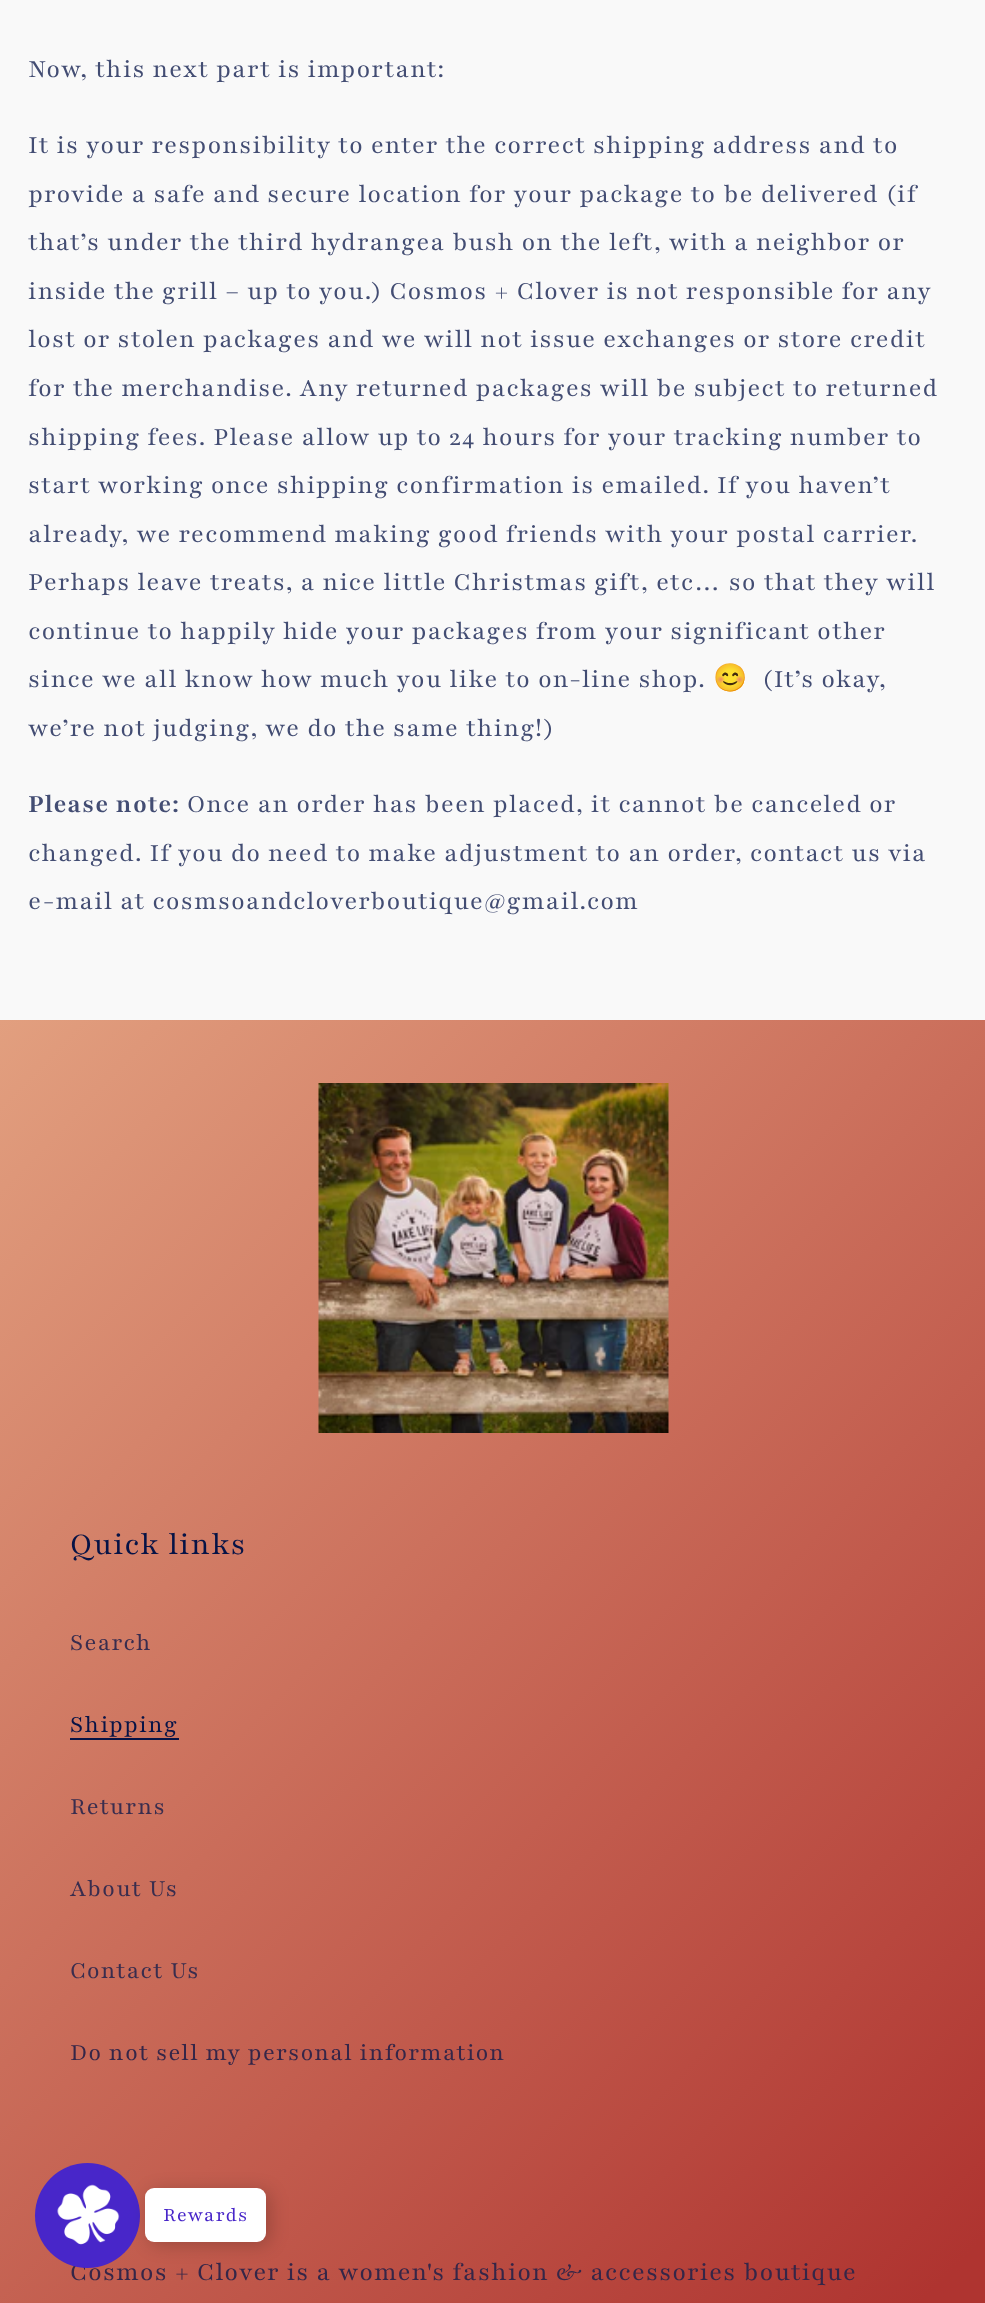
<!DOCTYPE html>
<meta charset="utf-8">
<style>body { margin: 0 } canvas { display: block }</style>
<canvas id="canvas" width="985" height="2303"></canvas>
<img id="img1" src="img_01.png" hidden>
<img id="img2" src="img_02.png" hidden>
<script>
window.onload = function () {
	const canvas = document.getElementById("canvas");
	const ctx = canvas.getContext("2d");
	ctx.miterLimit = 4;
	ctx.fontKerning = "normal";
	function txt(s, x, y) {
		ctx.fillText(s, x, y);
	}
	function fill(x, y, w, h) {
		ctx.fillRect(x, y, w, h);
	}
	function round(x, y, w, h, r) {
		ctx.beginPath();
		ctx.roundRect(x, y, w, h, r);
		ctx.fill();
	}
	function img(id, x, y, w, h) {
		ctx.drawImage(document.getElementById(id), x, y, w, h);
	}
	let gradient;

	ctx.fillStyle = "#F9F9F9";
	fill(0, 0, 985, 2303);
	gradient = ctx.createLinearGradient(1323, 1953, -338, 350);
	gradient.addColorStop(0.02, "#AF3430");
	gradient.addColorStop(1, "#F9D0A3");
	ctx.fillStyle = gradient;
	fill(0, 1020, 985, 1283);
	img("img1", 318, 1083, 351, 350);
	ctx.fillStyle = "#061346";
	fill(70, 1738, 109, 2);
	ctx.letterSpacing = "1.1px";
	ctx.font = "27.55px Playfair";
	ctx.fillStyle = "#434D73";
	txt("Now, this next part is important:", 28, 77);
	txt("It is your responsibility to enter the correct shipping address and to", 28, 153);
	txt("provide a safe and secure location for your package to be delivered (if", 28, 202);
	txt("that’s under the third hydrangea bush on the left, with a neighbor or", 28, 250);
	txt("inside the grill – up to you.) Cosmos + Clover is not responsible for any", 28, 299);
	txt("lost or stolen packages and we will not issue exchanges or store credit", 28, 347);
	txt("for the merchandise. Any returned packages will be subject to returned", 28, 396);
	txt("shipping fees. Please allow up to 24 hours for your tracking number to", 28, 445);
	txt("start working once shipping confirmation is emailed. If you haven’t", 28, 493);
	txt("already, we recommend making good friends with your postal carrier.", 28, 542);
	txt("Perhaps leave treats, a nice little Christmas gift, etc… so that they will", 28, 590);
	txt("continue to happily hide your packages from your significant other", 28, 639);
	txt("since we all know how much you like to on-line shop.", 28, 687);
	ctx.font = "27.55px Noto Color Emoji";
	txt("😊", 713, 687);
	ctx.font = "27.55px Playfair";
	txt("(It’s okay,", 762, 687);
	txt("we’re not judging, we do the same thing!)", 28, 736);
	ctx.font = "bold 27.55px Playfair";
	txt("Please note:", 28, 812);
	ctx.font = "27.55px Playfair";
	txt("Once an order has been placed, it cannot be canceled or", 187, 812);
	txt("changed. If you do need to make adjustment to an order, contact us via", 28, 861);
	txt("e-mail at cosmsoandcloverboutique@gmail.com", 28, 909);
	ctx.letterSpacing = "1.25px";
	ctx.font = "33.5px 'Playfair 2'";
	ctx.fillStyle = "#061346";
	txt("Quick links", 70, 1554);
	ctx.letterSpacing = "1.1px";
	ctx.font = "25.75px 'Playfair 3'";
	ctx.fillStyle = "#392D4E";
	txt("Search", 70, 1650);
	ctx.fillStyle = "#061346";
	txt("Shipping", 70, 1732);
	ctx.fillStyle = "#392D4E";
	txt("Returns", 70, 1814);
	txt("About Us", 70, 1896);
	txt("Contact Us", 70, 1978);
	ctx.fillStyle = "#352648";
	txt("Do not sell my personal information", 70, 2060);
	ctx.font = "27.55px Playfair";
	txt("Cosmos + Clover is a women's fashion & accessories boutique", 70, 2280);
	ctx.fillStyle = "#4826C9";
	ctx.beginPath();
	ctx.arc(87.5, 2215.5, 52.5, 0, Math.PI * 2);
	ctx.fill();
	img("img2", 57, 2184, 63, 61);
	ctx.fillStyle = "rgba(0, 0, 0, 0.2)";
	ctx.filter = "blur(9px)";
	ctx.beginPath();
	ctx.roundRect(149, 2191, 121, 54, 9);
	ctx.fill();
	ctx.filter = "none";
	ctx.fillStyle = "#FFFFFF";
	round(145, 2188, 121, 54, 9);
	ctx.font = "21px 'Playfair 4'";
	ctx.fillStyle = "#4826C9";
	txt("Rewards", 163, 2221);
};
</script>
